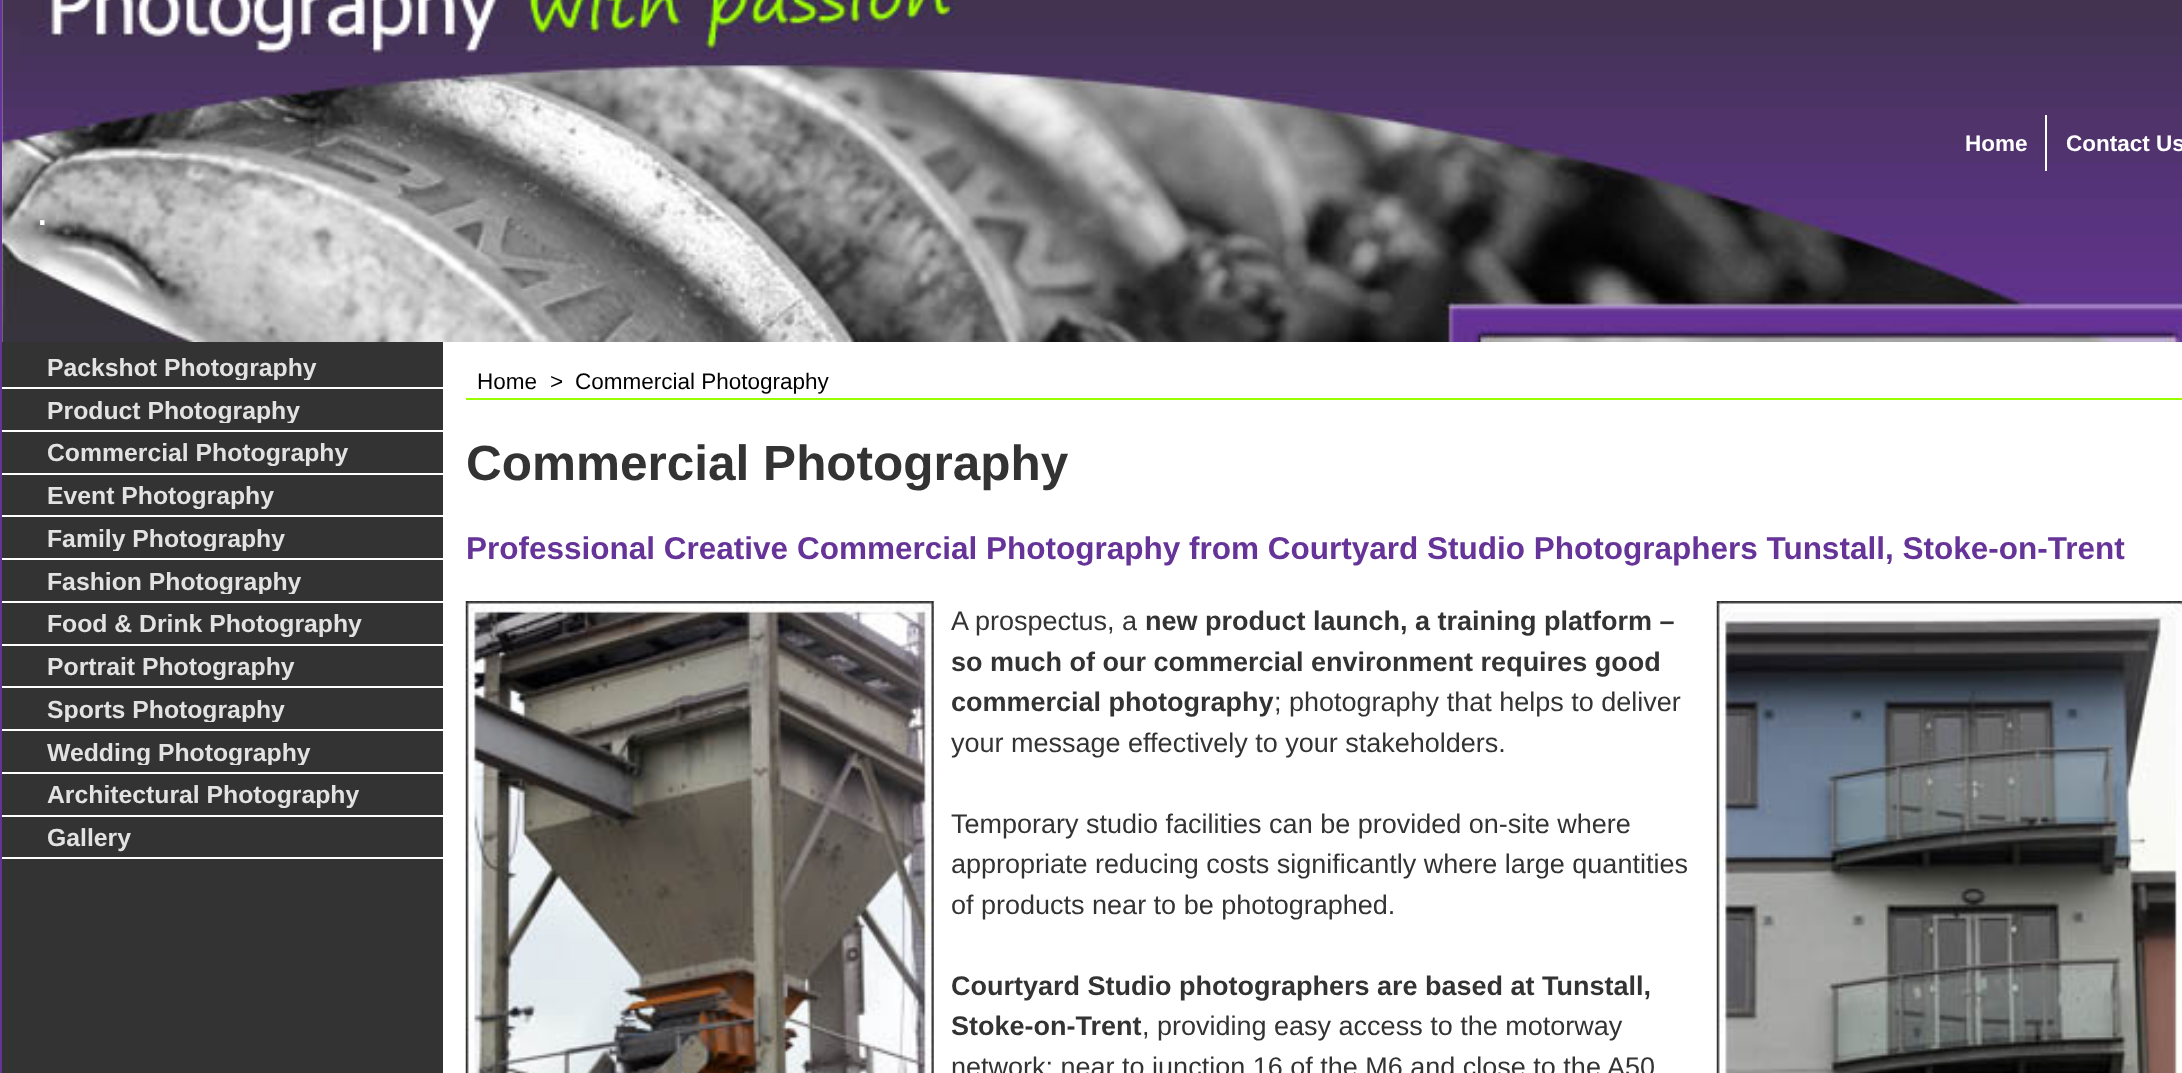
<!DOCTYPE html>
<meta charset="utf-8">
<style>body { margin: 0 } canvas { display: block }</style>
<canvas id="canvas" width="2182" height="1073"></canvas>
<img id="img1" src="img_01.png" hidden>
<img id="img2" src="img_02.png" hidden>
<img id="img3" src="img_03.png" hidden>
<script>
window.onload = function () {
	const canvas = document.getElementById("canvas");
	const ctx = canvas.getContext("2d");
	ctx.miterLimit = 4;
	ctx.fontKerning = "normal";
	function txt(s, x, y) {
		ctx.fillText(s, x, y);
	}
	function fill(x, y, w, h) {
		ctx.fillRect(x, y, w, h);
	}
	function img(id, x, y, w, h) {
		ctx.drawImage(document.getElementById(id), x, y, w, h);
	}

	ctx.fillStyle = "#FFFFFF";
	fill(0, 0, 2182, 1073);
	ctx.strokeStyle = "#663399";
	ctx.lineWidth = 2;
	ctx.strokeRect(1, -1, 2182, 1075);
	img("img1", 2, 0, 2180, 342);
	fill(2045, 115, 2, 56);
	ctx.fillStyle = "#333333";
	fill(2, 342, 441, 731);
	ctx.fillStyle = "#FFFFFF";
	fill(2, 387, 441, 2);
	fill(2, 430, 441, 2);
	fill(2, 473, 441, 2);
	fill(2, 515, 441, 2);
	fill(2, 558, 441, 2);
	fill(2, 601, 441, 2);
	fill(2, 644, 441, 2);
	fill(2, 686, 441, 2);
	fill(2, 729, 441, 2);
	fill(2, 772, 441, 2);
	fill(2, 815, 441, 2);
	fill(2, 857, 441, 2);
	ctx.fillStyle = "#99FF00";
	fill(466, 398, 1716, 2);
	img("img2", 465, 601, 469, 472);
	img("img3", 1716, 601, 466, 472);
	ctx.font = "bold 22.5px Liberation Sans";
	ctx.fillStyle = "#FFFFFF";
	txt("Home", 1965, 151);
	txt("Contact Us", 2066, 151);
	ctx.font = "45px Liberation Sans";
	txt(".", 36, 225);
	ctx.save();
	ctx.beginPath();
	ctx.rect(47, 353, 351, 27);
	ctx.clip();
	ctx.font = "bold 24.75px Liberation Sans";
	ctx.fillStyle = "#E2E2E2";
	txt("Packshot Photography", 47, 376);
	ctx.restore();
	ctx.save();
	ctx.beginPath();
	ctx.rect(47, 396, 351, 27);
	ctx.clip();
	ctx.font = "bold 24.75px Liberation Sans";
	ctx.fillStyle = "#E2E2E2";
	txt("Product Photography", 47, 419);
	ctx.restore();
	ctx.save();
	ctx.beginPath();
	ctx.rect(47, 439, 351, 27);
	ctx.clip();
	ctx.font = "bold 24.75px Liberation Sans";
	ctx.fillStyle = "#E2E2E2";
	txt("Commercial Photography", 47, 461);
	ctx.restore();
	ctx.save();
	ctx.beginPath();
	ctx.rect(47, 482, 351, 27);
	ctx.clip();
	ctx.font = "bold 24.75px Liberation Sans";
	ctx.fillStyle = "#E2E2E2";
	txt("Event Photography", 47, 504);
	ctx.restore();
	ctx.save();
	ctx.beginPath();
	ctx.rect(47, 524, 351, 27);
	ctx.clip();
	ctx.font = "bold 24.75px Liberation Sans";
	ctx.fillStyle = "#E2E2E2";
	txt("Family Photography", 47, 547);
	ctx.restore();
	ctx.save();
	ctx.beginPath();
	ctx.rect(47, 567, 351, 27);
	ctx.clip();
	ctx.font = "bold 24.75px Liberation Sans";
	ctx.fillStyle = "#E2E2E2";
	txt("Fashion Photography", 47, 590);
	ctx.restore();
	ctx.save();
	ctx.beginPath();
	ctx.rect(47, 610, 351, 27);
	ctx.clip();
	ctx.font = "bold 24.75px Liberation Sans";
	ctx.fillStyle = "#E2E2E2";
	txt("Food & Drink Photography", 47, 632);
	ctx.restore();
	ctx.save();
	ctx.beginPath();
	ctx.rect(47, 653, 351, 27);
	ctx.clip();
	ctx.font = "bold 24.75px Liberation Sans";
	ctx.fillStyle = "#E2E2E2";
	txt("Portrait Photography", 47, 675);
	ctx.restore();
	ctx.save();
	ctx.beginPath();
	ctx.rect(47, 695, 351, 27);
	ctx.clip();
	ctx.font = "bold 24.75px Liberation Sans";
	ctx.fillStyle = "#E2E2E2";
	txt("Sports Photography", 47, 718);
	ctx.restore();
	ctx.save();
	ctx.beginPath();
	ctx.rect(47, 738, 351, 27);
	ctx.clip();
	ctx.font = "bold 24.75px Liberation Sans";
	ctx.fillStyle = "#E2E2E2";
	txt("Wedding Photography", 47, 761);
	ctx.restore();
	ctx.save();
	ctx.beginPath();
	ctx.rect(47, 781, 351, 27);
	ctx.clip();
	ctx.font = "bold 24.75px Liberation Sans";
	ctx.fillStyle = "#E2E2E2";
	txt("Architectural Photography", 47, 803);
	ctx.restore();
	ctx.font = "bold 24.75px Liberation Sans";
	ctx.fillStyle = "#E2E2E2";
	txt("Gallery", 47, 846);
	ctx.font = "22.5px Liberation Sans";
	ctx.fillStyle = "#000000";
	txt("Home", 477, 389);
	txt(">", 550, 389);
	txt("Commercial Photography", 575, 389);
	ctx.font = "bold 49.5px Liberation Sans";
	ctx.fillStyle = "#333333";
	txt("Commercial Photography", 466, 480);
	ctx.font = "bold 31.5px Liberation Sans";
	ctx.fillStyle = "#663399";
	txt("Professional Creative Commercial Photography from Courtyard Studio Photographers Tunstall, Stoke-on-Trent", 466, 559);
	ctx.font = "27px Liberation Sans";
	ctx.fillStyle = "#333333";
	txt("A prospectus, a", 951, 630);
	ctx.font = "bold 27px Liberation Sans";
	txt("new product launch, a training platform –", 1145, 630);
	txt("so much of our commercial environment requires good", 951, 671);
	txt("commercial photography", 951, 711);
	ctx.font = "27px Liberation Sans";
	txt("; photography that helps to deliver", 1274, 711);
	txt("your message effectively to your stakeholders.", 951, 752);
	txt("Temporary studio facilities can be provided on-site where", 951, 833);
	txt("appropriate reducing costs significantly where large quantities", 951, 873);
	txt("of products near to be photographed.", 951, 914);
	ctx.font = "bold 27px Liberation Sans";
	txt("Courtyard Studio photographers are based at Tunstall,", 951, 995);
	txt("Stoke-on-Trent", 951, 1035);
	ctx.font = "27px Liberation Sans";
	txt(", providing easy access to the motorway", 1142, 1035);
	txt("network; near to junction 16 of the M6 and close to the A50", 951, 1076);
};
</script>
